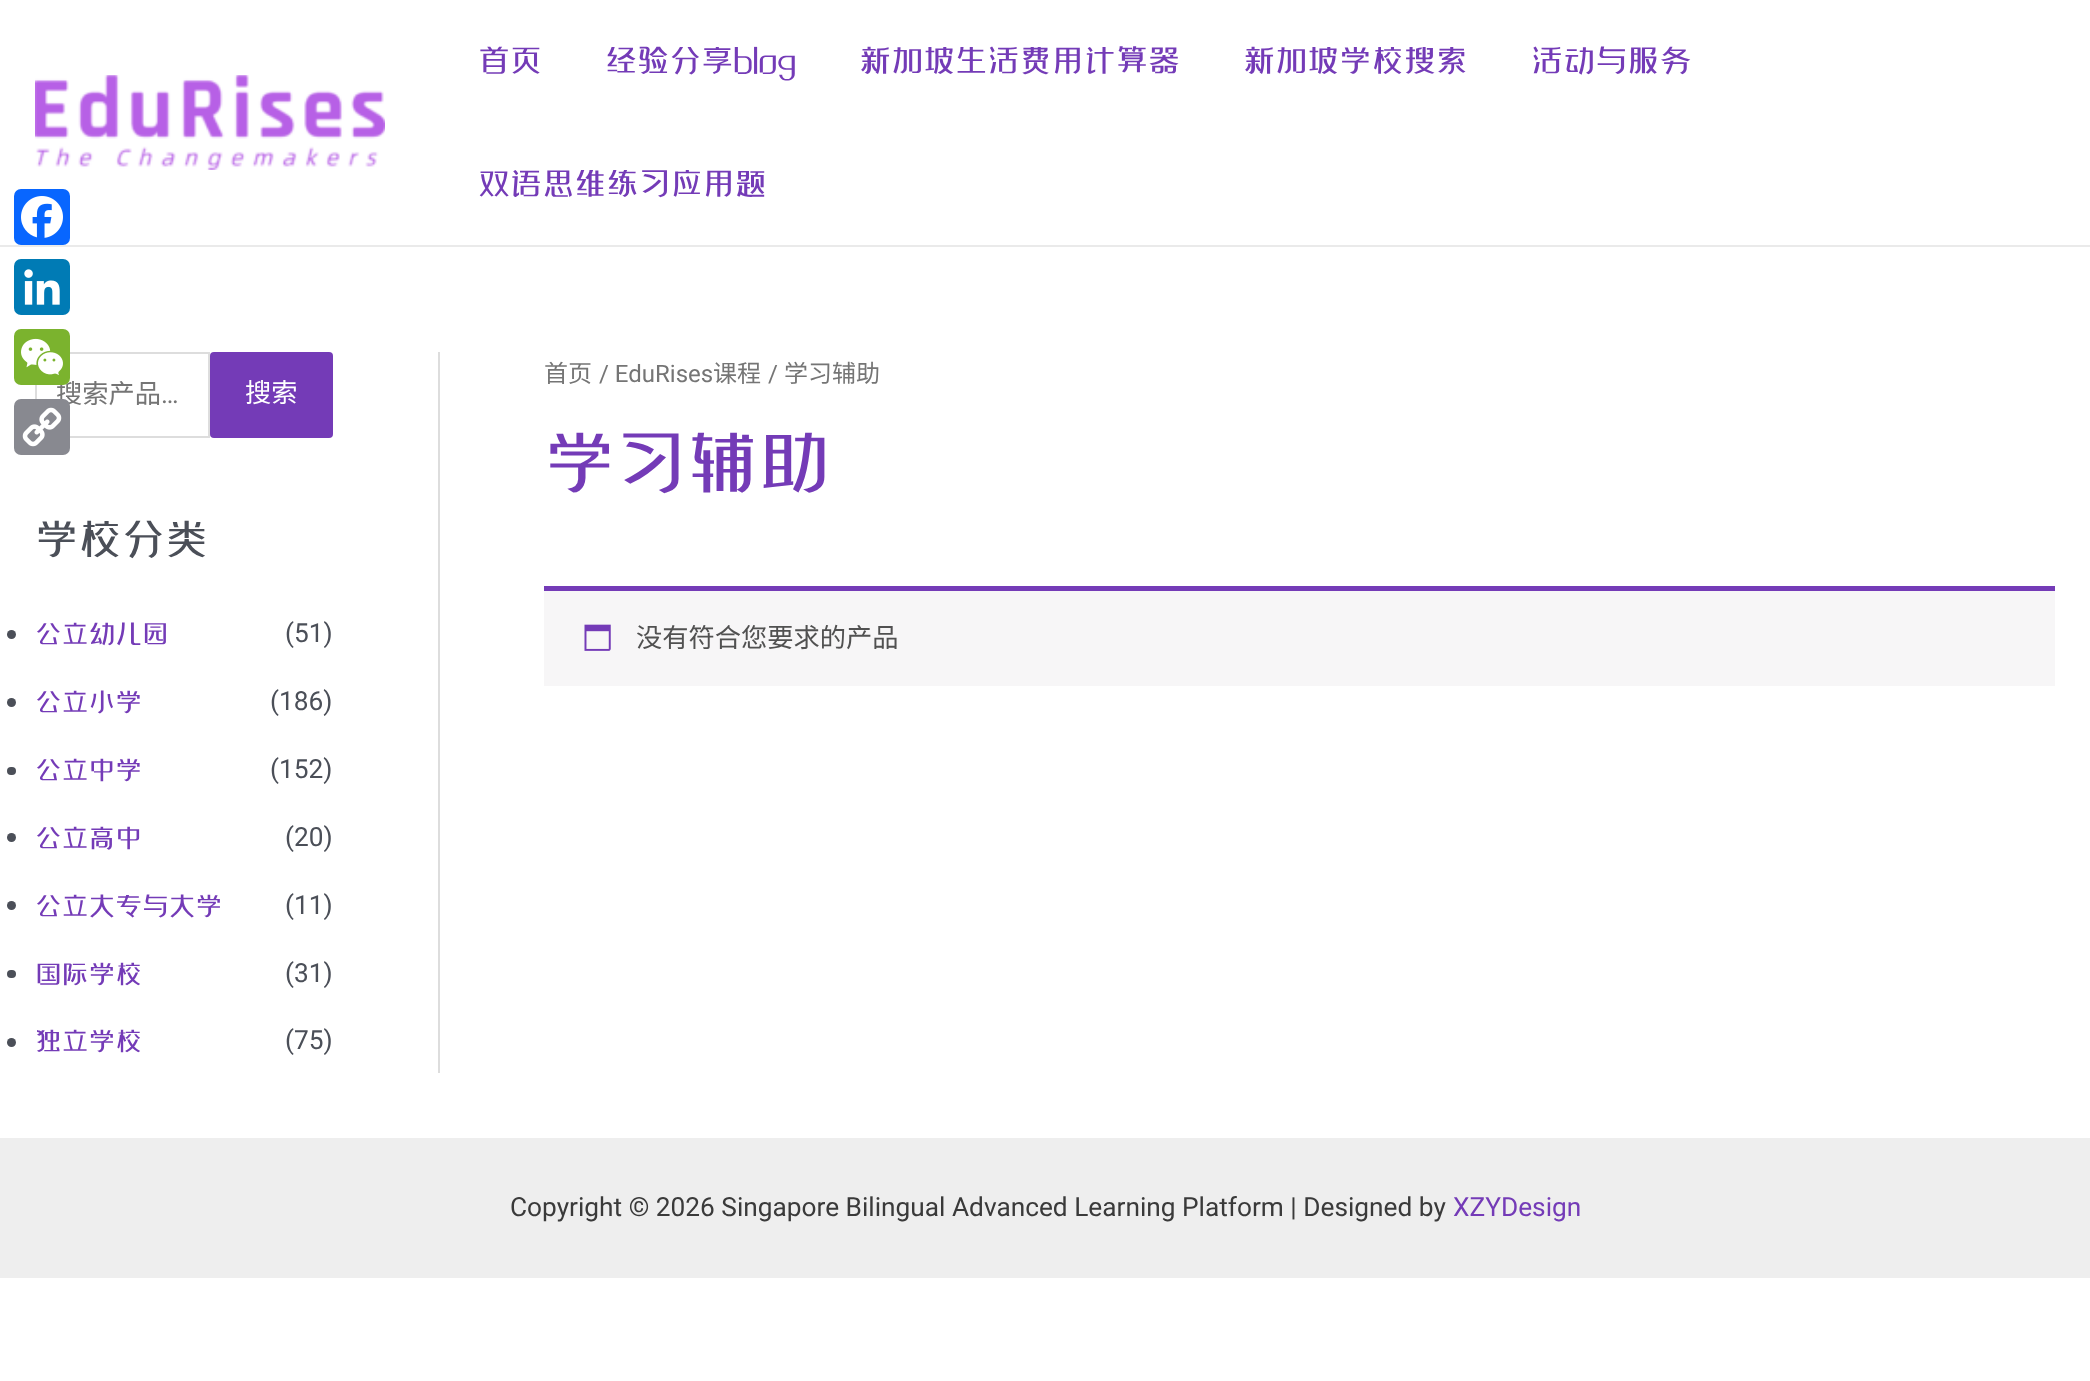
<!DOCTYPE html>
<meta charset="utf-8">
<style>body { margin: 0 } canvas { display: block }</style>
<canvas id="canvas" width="2090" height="1381"></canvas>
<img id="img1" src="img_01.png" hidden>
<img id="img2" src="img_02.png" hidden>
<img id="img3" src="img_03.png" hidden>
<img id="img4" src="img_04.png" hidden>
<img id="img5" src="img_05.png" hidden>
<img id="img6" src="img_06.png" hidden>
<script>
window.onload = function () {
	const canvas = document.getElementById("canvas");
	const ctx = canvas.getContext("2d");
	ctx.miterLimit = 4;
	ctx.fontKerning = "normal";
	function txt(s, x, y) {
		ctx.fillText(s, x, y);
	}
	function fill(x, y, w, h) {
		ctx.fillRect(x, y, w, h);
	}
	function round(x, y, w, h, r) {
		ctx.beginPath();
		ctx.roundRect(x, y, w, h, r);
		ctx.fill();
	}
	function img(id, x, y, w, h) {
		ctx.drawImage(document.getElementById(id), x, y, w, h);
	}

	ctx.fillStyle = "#FFFFFF";
	fill(0, 0, 2090, 1381);
	ctx.fillStyle = "#EAEAEA";
	fill(0, 245, 2090, 2);
	img("img1", 35, 75, 350, 95);
	ctx.fillStyle = "#DDDDDD";
	fill(438, 352, 2, 721);
	ctx.strokeStyle = "#DDDDDD";
	ctx.lineWidth = 2;
	ctx.strokeRect(36, 353, 173, 84);
	ctx.fillStyle = "#743BB7";
	round(210, 352, 123, 86, 4);
	ctx.fillStyle = "#4B4F58";
	ctx.beginPath();
	ctx.arc(11.5, 634.5, 4.5, 0, Math.PI * 2);
	ctx.fill();
	ctx.beginPath();
	ctx.arc(11.5, 702.5, 4.5, 0, Math.PI * 2);
	ctx.fill();
	round(7, 767, 9, 8, 4);
	ctx.beginPath();
	ctx.arc(11.5, 837.5, 4.5, 0, Math.PI * 2);
	ctx.fill();
	ctx.beginPath();
	ctx.arc(11.5, 905.5, 4.5, 0, Math.PI * 2);
	ctx.fill();
	round(7, 970, 9, 8, 4);
	ctx.beginPath();
	ctx.arc(11.5, 1042.5, 4.5, 0, Math.PI * 2);
	ctx.fill();
	ctx.fillStyle = "#F7F6F7";
	fill(544, 591, 1511, 95);
	ctx.fillStyle = "#743BB7";
	fill(544, 586, 1511, 5);
	img("img2", 584, 624, 27, 27);
	ctx.fillStyle = "#EEEEEE";
	fill(0, 1138, 2090, 140);
	ctx.fillStyle = "#0866FF";
	round(14, 189, 56, 56, 7);
	img("img3", 21, 196, 42, 42);
	ctx.fillStyle = "#007BB5";
	round(14, 259, 56, 56, 7);
	img("img4", 24, 269, 36, 36);
	ctx.font = "31.5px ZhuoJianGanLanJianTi";
	ctx.fillStyle = "#743BB7";
	txt("首页", 478, 70);
	txt("经验分享blog", 605, 70);
	txt("新加坡生活费用计算器", 859, 70);
	txt("新加坡学校搜索", 1243, 70);
	txt("活动与服务", 1531, 70);
	txt("双语思维练习应用题", 478, 193);
	ctx.font = "26.25px Noto Sans CJK SC";
	ctx.fillStyle = "#757575";
	txt("搜索产品", 56, 403);
	ctx.font = "26.25px Roboto";
	txt("…", 161, 403);
	ctx.font = "26.25px Noto Sans CJK SC";
	ctx.fillStyle = "#FFFFFF";
	txt("搜索", 245, 402);
	ctx.font = "42.5px ZhuoJianGanLanJianTi";
	ctx.fillStyle = "#4B4F58";
	txt("学校分类", 35, 552);
	ctx.font = "26.25px ZhuoJianGanLanJianTi";
	ctx.fillStyle = "#743BB7";
	txt("公立幼儿园", 35, 642);
	ctx.font = "26.25px Roboto";
	ctx.fillStyle = "#4B4F58";
	txt("(51)", 285, 642);
	ctx.font = "26.25px ZhuoJianGanLanJianTi";
	ctx.fillStyle = "#743BB7";
	txt("公立小学", 35, 710);
	ctx.font = "26.25px Roboto";
	ctx.fillStyle = "#4B4F58";
	txt("(186)", 270, 710);
	ctx.font = "26.25px ZhuoJianGanLanJianTi";
	ctx.fillStyle = "#743BB7";
	txt("公立中学", 35, 778);
	ctx.font = "26.25px Roboto";
	ctx.fillStyle = "#4B4F58";
	txt("(152)", 270, 778);
	ctx.font = "26.25px ZhuoJianGanLanJianTi";
	ctx.fillStyle = "#743BB7";
	txt("公立高中", 35, 846);
	ctx.font = "26.25px Roboto";
	ctx.fillStyle = "#4B4F58";
	txt("(20)", 285, 846);
	ctx.font = "26.25px ZhuoJianGanLanJianTi";
	ctx.fillStyle = "#743BB7";
	txt("公立大专与大学", 35, 914);
	ctx.font = "26.25px Roboto";
	ctx.fillStyle = "#4B4F58";
	txt("(11)", 285, 914);
	ctx.font = "26.25px ZhuoJianGanLanJianTi";
	ctx.fillStyle = "#743BB7";
	txt("国际学校", 35, 982);
	ctx.font = "26.25px Roboto";
	ctx.fillStyle = "#4B4F58";
	txt("(31)", 285, 982);
	ctx.font = "26.25px ZhuoJianGanLanJianTi";
	ctx.fillStyle = "#743BB7";
	txt("独立学校", 35, 1049);
	ctx.font = "26.25px Roboto";
	ctx.fillStyle = "#4B4F58";
	txt("(75)", 285, 1049);
	ctx.font = "24px Noto Sans CJK SC";
	ctx.fillStyle = "#757575";
	txt("首页", 544, 382);
	ctx.font = "24px Roboto";
	txt("/ EduRises", 599, 382);
	ctx.font = "24px Noto Sans CJK SC";
	txt("课程", 713, 382);
	ctx.font = "24px Roboto";
	txt("/", 768, 382);
	ctx.font = "24px Noto Sans CJK SC";
	txt("学习辅助", 784, 382);
	ctx.font = "70px ZhuoJianGanLanJianTi";
	ctx.fillStyle = "#743BB7";
	txt("学习辅助", 544, 484);
	ctx.font = "26.25px Noto Sans CJK SC";
	ctx.fillStyle = "#515151";
	txt("没有符合您要求的产品", 636, 647);
	ctx.font = "26.25px Roboto";
	ctx.fillStyle = "#3A3A3A";
	txt("Copyright © 2026 Singapore Bilingual Advanced Learning Platform | Designed by", 510, 1216);
	ctx.fillStyle = "#743BB7";
	txt("XZYDesign", 1453, 1216);
	ctx.fillStyle = "#7BB32E";
	round(14, 329, 56, 56, 7);
	img("img5", 21, 338, 42, 37);
	ctx.fillStyle = "#888990";
	round(14, 399, 56, 56, 7);
	img("img6", 22, 407, 40, 40);
};
</script>
